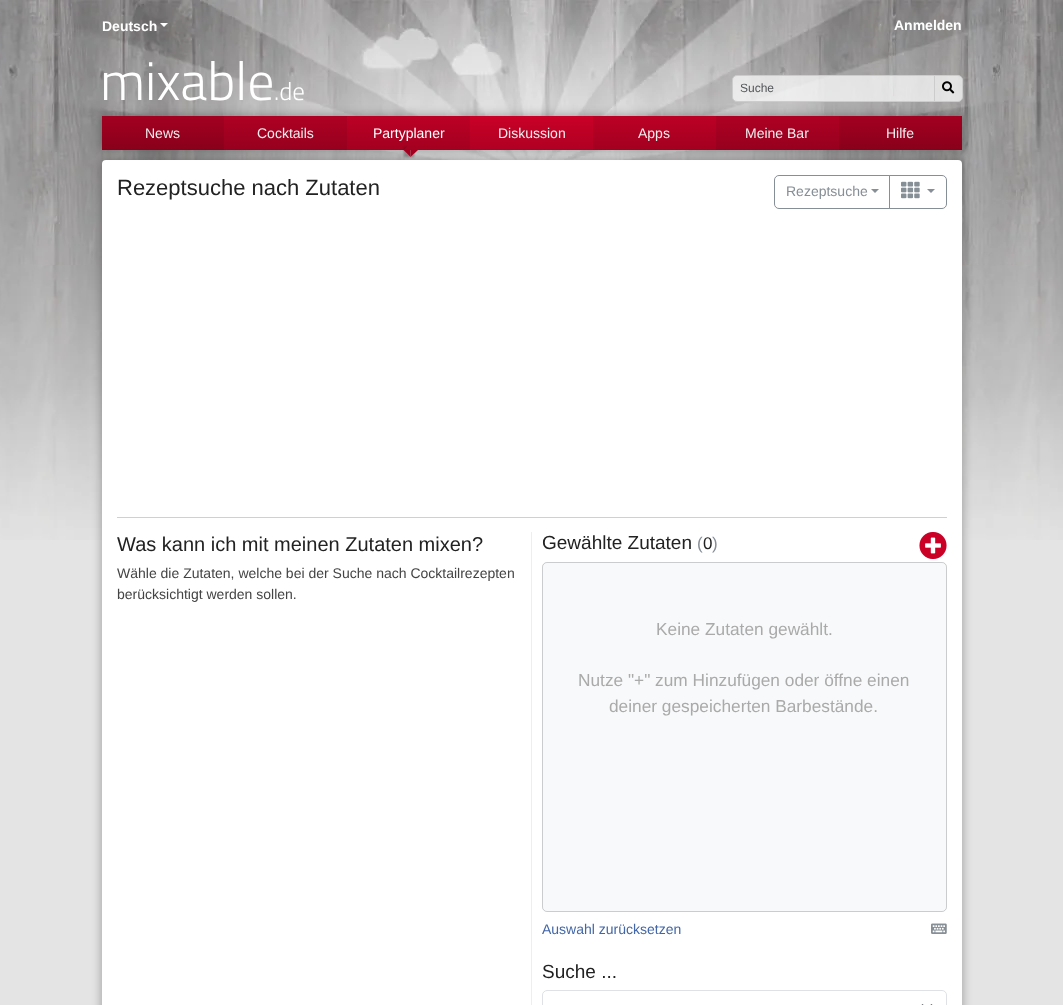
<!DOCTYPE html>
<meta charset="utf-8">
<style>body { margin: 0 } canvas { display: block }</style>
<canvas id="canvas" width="1063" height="1005"></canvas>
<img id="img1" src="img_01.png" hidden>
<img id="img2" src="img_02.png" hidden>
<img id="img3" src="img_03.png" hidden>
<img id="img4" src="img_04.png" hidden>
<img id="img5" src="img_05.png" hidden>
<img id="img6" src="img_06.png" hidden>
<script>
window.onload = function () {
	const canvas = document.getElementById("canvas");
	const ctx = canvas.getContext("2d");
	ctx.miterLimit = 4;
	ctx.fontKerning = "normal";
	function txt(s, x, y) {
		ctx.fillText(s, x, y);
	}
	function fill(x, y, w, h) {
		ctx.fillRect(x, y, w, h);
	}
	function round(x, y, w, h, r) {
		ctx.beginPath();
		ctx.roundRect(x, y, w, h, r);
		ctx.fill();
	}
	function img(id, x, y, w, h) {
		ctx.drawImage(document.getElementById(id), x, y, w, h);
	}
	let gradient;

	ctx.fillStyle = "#E4E4E4";
	fill(0, 0, 1063, 1005);
	img("img1", 0, 0, 1063, 540);
	img("img2", 32, 0, 1000, 265);
	ctx.fillStyle = "#FFFFFF";
	ctx.beginPath();
	ctx.moveTo(160, 23);
	ctx.lineTo(168, 23);
	ctx.lineTo(164, 27);
	ctx.closePath();
	ctx.fill();
	ctx.fillStyle = "rgba(255, 255, 255, 0.7)";
	ctx.beginPath();
	ctx.roundRect(732.5, 75.5, 202, 26, [4.5, 0, 0, 4.5]);
	ctx.fill();
	ctx.strokeStyle = "#CCCCCC";
	ctx.stroke();
	ctx.beginPath();
	ctx.roundRect(934.5, 75.5, 28, 26, [0, 4.5, 4.5, 0]);
	ctx.fill();
	ctx.stroke();
	img("img3", 942, 81, 13, 13);
	ctx.fillStyle = "rgba(0, 0, 0, 0.28)";
	ctx.filter = "blur(5px)";
	ctx.beginPath();
	ctx.roundRect(101, 159, 862, 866, 5);
	ctx.fill();
	ctx.filter = "none";
	ctx.fillStyle = "#FFFFFF";
	round(102, 160, 860, 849, 4);
	ctx.fillStyle = "rgba(0, 0, 0, 0.28)";
	ctx.filter = "blur(5px)";
	ctx.beginPath();
	ctx.rect(101, 115, 862, 36);
	ctx.fill();
	ctx.filter = "none";
	gradient = ctx.createLinearGradient(532, 116, 532, 150);
	gradient.addColorStop(0, "#BC0025");
	gradient.addColorStop(1, "#A30020");
	ctx.fillStyle = gradient;
	fill(347, 116, 369, 34);
	gradient = ctx.createLinearGradient(163, 116, 163, 150);
	gradient.addColorStop(0, "#A30020");
	gradient.addColorStop(1, "#89001B");
	ctx.fillStyle = gradient;
	fill(102, 116, 122, 34);
	gradient = ctx.createLinearGradient(286, 116, 286, 150);
	gradient.addColorStop(0, "#AF0023");
	gradient.addColorStop(1, "#96001E");
	ctx.fillStyle = gradient;
	fill(224, 116, 123, 34);
	ctx.save();
	ctx.beginPath();
	ctx.moveTo(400, 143);
	ctx.lineTo(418, 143);
	ctx.lineTo(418, 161);
	ctx.lineTo(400, 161);
	ctx.closePath();
	ctx.moveTo(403.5, 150);
	ctx.lineTo(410.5, 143);
	ctx.lineTo(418, 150);
	ctx.lineTo(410.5, 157);
	ctx.closePath();
	ctx.clip("evenodd");
	ctx.fillStyle = "rgba(0, 0, 0, 0.28)";
	ctx.filter = "blur(1px)";
	ctx.beginPath();
	ctx.rect(404, 147, 10, 10);
	ctx.fill();
	ctx.filter = "none";
	ctx.restore();
	ctx.fillStyle = "#A30020";
	ctx.beginPath();
	ctx.moveTo(418, 150);
	ctx.lineTo(410.5, 157);
	ctx.lineTo(410.5, 150);
	ctx.closePath();
	ctx.fill();
	ctx.beginPath();
	ctx.moveTo(410.5, 157);
	ctx.lineTo(403.5, 150);
	ctx.lineTo(410.5, 150);
	ctx.closePath();
	ctx.fill();
	gradient = ctx.createLinearGradient(532, 116, 532, 150);
	gradient.addColorStop(0, "#CA0027");
	gradient.addColorStop(1, "#AF0023");
	ctx.fillStyle = gradient;
	fill(470, 116, 123, 34);
	gradient = ctx.createLinearGradient(778, 116, 778, 150);
	gradient.addColorStop(0, "#AF0023");
	gradient.addColorStop(1, "#96001E");
	ctx.fillStyle = gradient;
	fill(716, 116, 123, 34);
	gradient = ctx.createLinearGradient(901, 116, 901, 150);
	gradient.addColorStop(0, "#A30020");
	gradient.addColorStop(1, "#89001B");
	ctx.fillStyle = gradient;
	fill(839, 116, 123, 34);
	ctx.beginPath();
	ctx.roundRect(774.5, 175.5, 115, 33, [4.5, 0, 0, 4.5]);
	ctx.strokeStyle = "#868E96";
	ctx.stroke();
	ctx.fillStyle = "#868E96";
	ctx.beginPath();
	ctx.moveTo(871, 189);
	ctx.lineTo(879, 189);
	ctx.lineTo(875, 193);
	ctx.closePath();
	ctx.fill();
	ctx.beginPath();
	ctx.roundRect(889.5, 175.5, 57, 33, [0, 4.5, 4.5, 0]);
	ctx.stroke();
	img("img4", 901, 181, 19, 18);
	ctx.beginPath();
	ctx.moveTo(927, 189);
	ctx.lineTo(935, 189);
	ctx.lineTo(931, 193);
	ctx.closePath();
	ctx.fill();
	ctx.fillStyle = "#D0D0D0";
	fill(117, 517, 830, 1);
	ctx.fillStyle = "#EEEEEE";
	fill(531, 532, 1, 473);
	img("img5", 919, 532, 28, 27);
	ctx.fillStyle = "#F8F9FA";
	round(542, 562, 405, 350, 5);
	ctx.beginPath();
	ctx.roundRect(542.5, 562.5, 404, 349, 4.5);
	ctx.strokeStyle = "rgba(0, 0, 0, 0.18)";
	ctx.stroke();
	img("img6", 931, 923, 16, 11);
	ctx.beginPath();
	ctx.moveTo(922.5, 1005);
	ctx.lineTo(927, 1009);
	ctx.lineTo(931.5, 1005);
	ctx.strokeStyle = "#343A40";
	ctx.lineWidth = 1.5;
	ctx.lineCap = "round";
	ctx.lineJoin = "round";
	ctx.stroke();
	ctx.beginPath();
	ctx.roundRect(542.5, 990.5, 404, 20, 4.5);
	ctx.strokeStyle = "#DEE2E6";
	ctx.lineWidth = 1;
	ctx.lineJoin = "miter";
	ctx.stroke();
	ctx.font = "bold 14px Liberation Sans";
	ctx.fillStyle = "#FFFFFF";
	txt("Deutsch", 102, 31);
	txt("Anmelden", 894, 30);
	ctx.font = "300 54px Titillium Web";
	txt("mixable", 100, 100);
	ctx.font = "300 25px Titillium Web";
	txt(".de", 274, 100);
	ctx.font = "12px Liberation Sans";
	ctx.fillStyle = "#535659";
	txt("Suche", 740, 92);
	ctx.font = "14px Liberation Sans";
	ctx.fillStyle = "#EEEEEE";
	txt("News", 145, 138);
	txt("Cocktails", 257, 138);
	ctx.fillStyle = "#FFFFFF";
	txt("Partyplaner", 373, 138);
	ctx.fillStyle = "#EEEEEE";
	txt("Diskussion", 498, 138);
	txt("Apps", 638, 138);
	txt("Meine Bar", 745, 138);
	txt("Hilfe", 886, 138);
	ctx.font = "22px Liberation Sans";
	ctx.fillStyle = "#222222";
	txt("Rezeptsuche nach Zutaten", 117, 195);
	ctx.font = "14px Liberation Sans";
	ctx.fillStyle = "#868E96";
	txt("Rezeptsuche", 786, 196);
	ctx.font = "20px Liberation Sans";
	ctx.fillStyle = "#222222";
	txt("Was kann ich mit meinen Zutaten mixen?", 117, 551);
	ctx.font = "14px Liberation Sans";
	ctx.fillStyle = "#444444";
	txt("Wähle die Zutaten, welche bei der Suche nach Cocktailrezepten", 117, 578);
	txt("berücksichtigt werden sollen.", 117, 599);
	ctx.font = "19px Liberation Sans";
	ctx.fillStyle = "#222222";
	txt("Gewählte Zutaten", 542, 549);
	ctx.font = "17px Liberation Sans";
	ctx.fillStyle = "#868E96";
	txt("(", 697, 549);
	ctx.fillStyle = "#222222";
	txt("0", 703, 549);
	ctx.fillStyle = "#868E96";
	txt(")", 712, 549);
	ctx.font = "17.3px Liberation Sans";
	ctx.fillStyle = "#AAAAAA";
	txt("Keine Zutaten gewählt.", 656, 635);
	txt("Nutze \"+\" zum Hinzufügen oder öffne einen", 578, 686);
	txt("deiner gespeicherten Barbestände.", 609, 712);
	ctx.font = "14px Liberation Sans";
	ctx.fillStyle = "#4266A7";
	txt("Auswahl zurücksetzen", 542, 934);
	ctx.font = "19px Liberation Sans";
	ctx.fillStyle = "#222222";
	txt("Suche ...", 542, 978);
};
</script>
